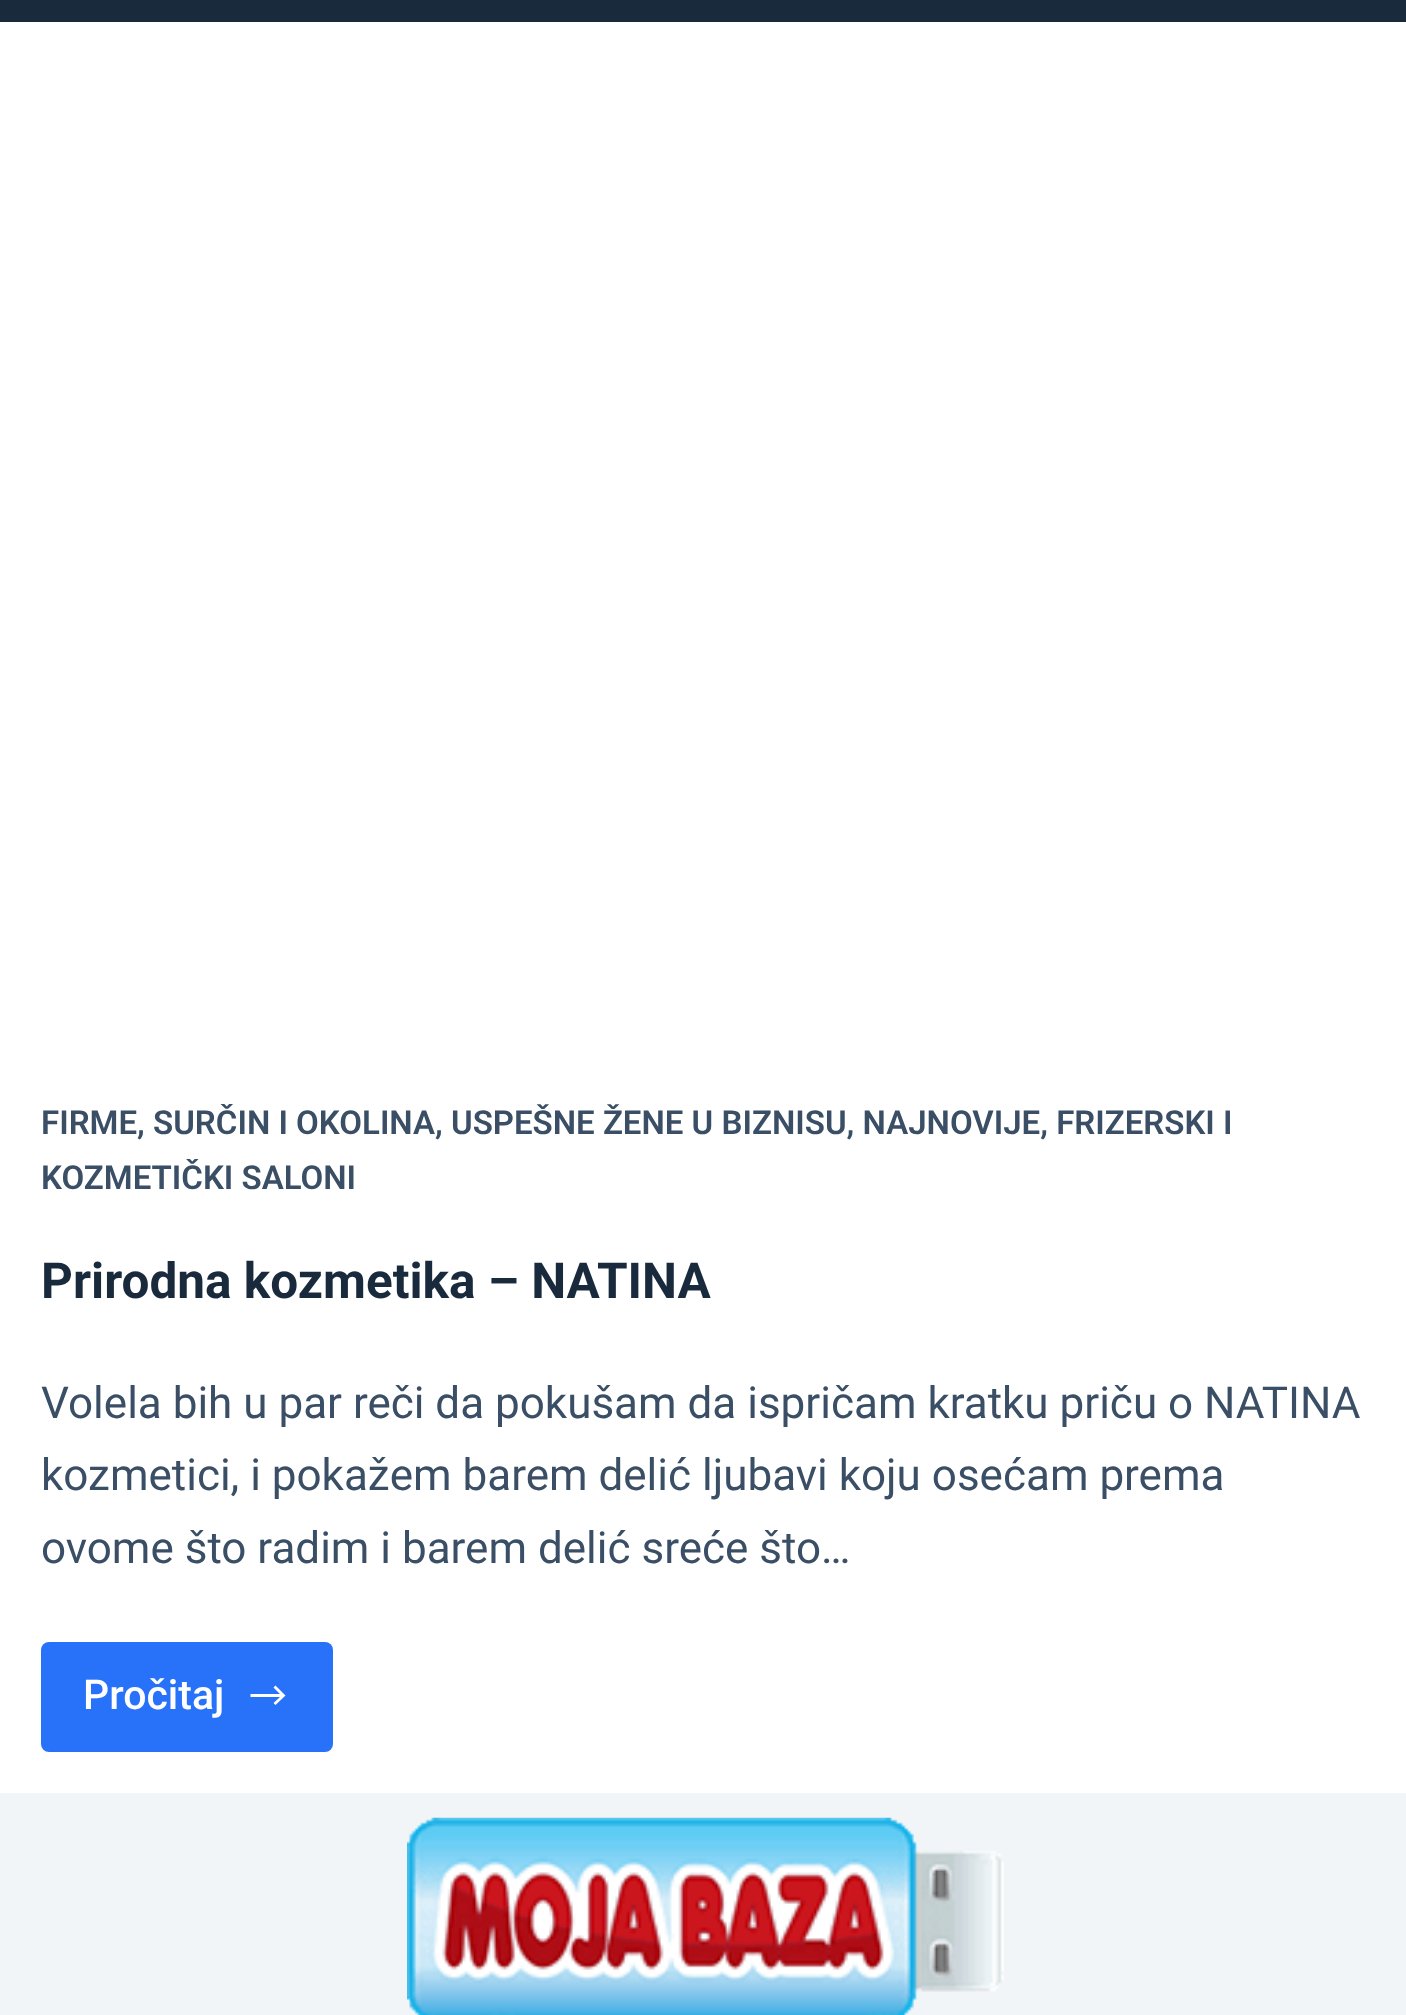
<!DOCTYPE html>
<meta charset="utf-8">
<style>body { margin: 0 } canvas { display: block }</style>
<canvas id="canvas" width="1406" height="2015"></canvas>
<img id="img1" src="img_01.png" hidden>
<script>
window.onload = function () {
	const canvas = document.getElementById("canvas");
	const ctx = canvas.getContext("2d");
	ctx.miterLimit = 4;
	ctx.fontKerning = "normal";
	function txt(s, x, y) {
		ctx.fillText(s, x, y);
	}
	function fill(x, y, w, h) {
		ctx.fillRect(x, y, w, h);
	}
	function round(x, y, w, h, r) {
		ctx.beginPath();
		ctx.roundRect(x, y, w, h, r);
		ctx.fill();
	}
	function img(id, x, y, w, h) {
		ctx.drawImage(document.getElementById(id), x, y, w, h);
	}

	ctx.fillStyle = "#FFFFFF";
	fill(0, 0, 1406, 2015);
	ctx.fillStyle = "#192A3D";
	fill(0, 0, 1406, 22);
	ctx.fillStyle = "#2872FA";
	round(41, 1642, 292, 110, 8);
	ctx.fillStyle = "#FFFFFF";
	ctx.beginPath();
	ctx.moveTo(275.5, 1685.5);
	ctx.lineTo(273.5, 1687.5);
	ctx.lineTo(280, 1694);
	ctx.lineTo(250.5, 1694);
	ctx.lineTo(250.5, 1697);
	ctx.lineTo(280, 1697);
	ctx.lineTo(273.5, 1703);
	ctx.lineTo(275.5, 1705);
	ctx.lineTo(285.5, 1695.5);
	ctx.closePath();
	ctx.fill();
	ctx.fillStyle = "#F2F5F7";
	fill(0, 1793, 1406, 222);
	img("img1", 407, 1817, 597, 198);
	ctx.font = "600 33px Roboto";
	ctx.fillStyle = "#3A4F66";
	txt("FIRME, SURČIN I OKOLINA, USPEŠNE ŽENE U BIZNISU, NAJNOVIJE, FRIZERSKI I", 41, 1134);
	txt("KOZMETIČKI SALONI", 41, 1189);
	ctx.font = "bold 49.5px Roboto";
	ctx.fillStyle = "#192A3D";
	txt("Prirodna kozmetika – NATINA", 41, 1298);
	ctx.font = "44px Roboto";
	ctx.fillStyle = "#3A4F66";
	txt("Volela bih u par reči da pokušam da ispričam kratku priču o NATINA", 41, 1418);
	txt("kozmetici, i pokažem barem delić ljubavi koju osećam prema", 41, 1490);
	txt("ovome što radim i barem delić sreće što…", 41, 1563);
	ctx.font = "500 41px Roboto";
	ctx.fillStyle = "#FFFFFF";
	txt("Pročitaj", 83, 1709);
};
</script>
